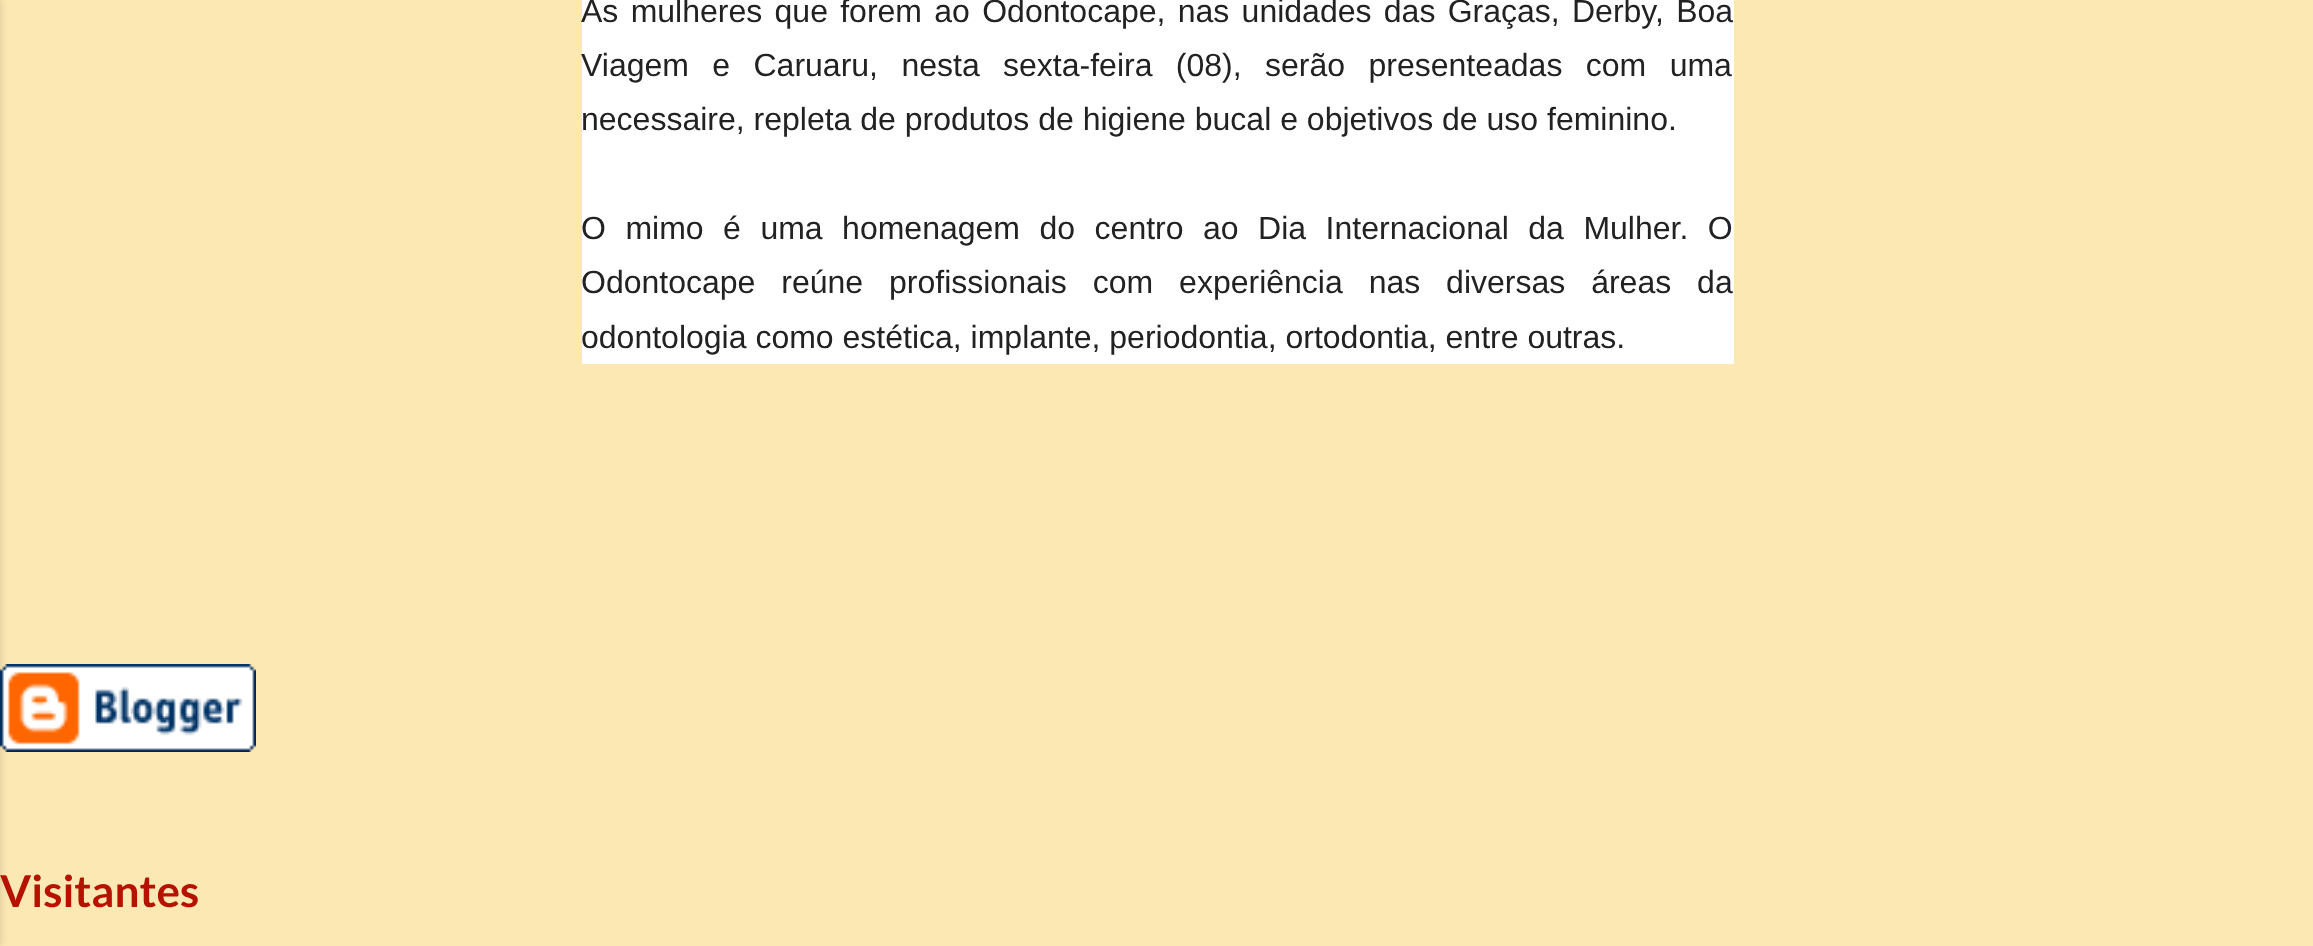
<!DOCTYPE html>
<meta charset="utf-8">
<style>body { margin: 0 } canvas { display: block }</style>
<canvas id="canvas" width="2313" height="946"></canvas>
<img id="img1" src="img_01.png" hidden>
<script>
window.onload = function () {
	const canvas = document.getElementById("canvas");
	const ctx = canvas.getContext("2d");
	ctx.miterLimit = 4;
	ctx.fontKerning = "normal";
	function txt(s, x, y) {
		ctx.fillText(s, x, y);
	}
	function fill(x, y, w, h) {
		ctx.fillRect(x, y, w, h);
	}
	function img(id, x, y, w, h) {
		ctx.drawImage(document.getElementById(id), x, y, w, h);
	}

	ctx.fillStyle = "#FCE8B2";
	fill(0, 0, 2313, 946);
	ctx.fillStyle = "#FFFFFF";
	fill(582, 0, 1152, 364);
	img("img1", 0, 664, 256, 88);
	ctx.fillStyle = "rgba(0, 0, 0, 0.1)";
	ctx.filter = "blur(3px)";
	ctx.beginPath();
	ctx.rect(-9, 0, 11, 946);
	ctx.fill();
	ctx.filter = "none";
	ctx.wordSpacing = "3.4px";
	ctx.font = "32px Liberation Sans";
	ctx.fillStyle = "#222222";
	txt("As mulheres que forem ao Odontocape, nas unidades das Graças, Derby, Boa", 581, 22);
	ctx.wordSpacing = "14.5px";
	txt("Viagem e Caruaru, nesta sexta-feira (08), serão presenteadas com uma", 581, 76);
	ctx.wordSpacing = "0px";
	txt("necessaire, repleta de produtos de higiene bucal e objetivos de uso feminino.", 581, 130);
	ctx.wordSpacing = "10.6px";
	txt("O mimo é uma homenagem do centro ao Dia Internacional da Mulher. O", 581, 239);
	ctx.wordSpacing = "17px";
	txt("Odontocape reúne profissionais com experiência nas diversas áreas da", 581, 293);
	ctx.wordSpacing = "0px";
	txt("odontologia como estética, implante, periodontia, ortodontia, entre outras.", 581, 348);
	ctx.font = "bold 44px Lato";
	ctx.fillStyle = "#B51200";
	txt("Visitantes", 0, 907);
};
</script>
